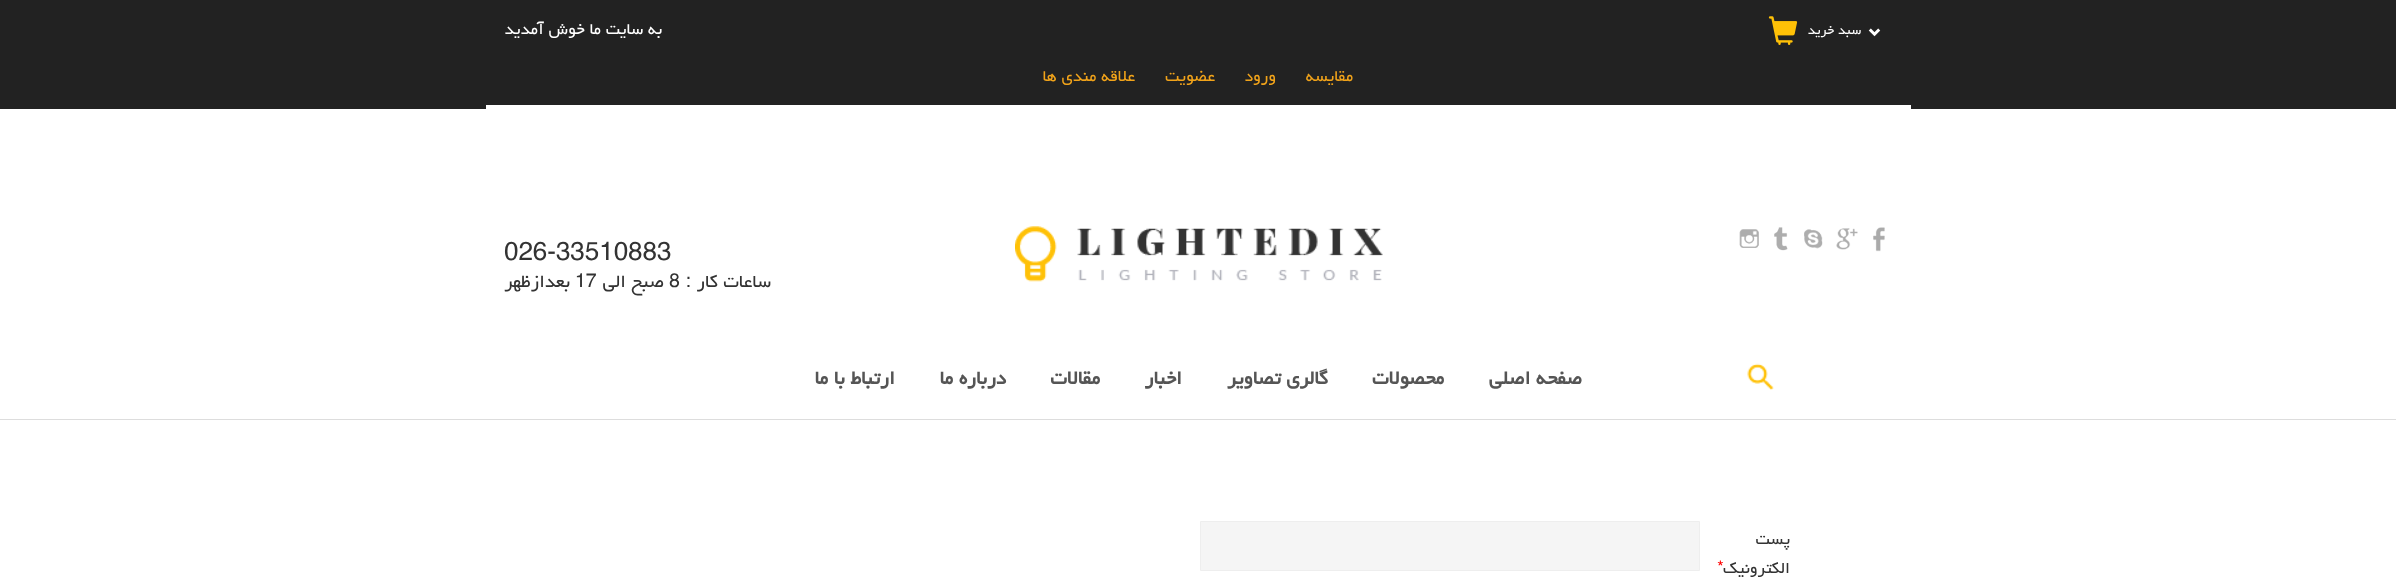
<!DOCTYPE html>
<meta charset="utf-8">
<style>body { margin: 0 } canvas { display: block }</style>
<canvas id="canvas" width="2396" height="577"></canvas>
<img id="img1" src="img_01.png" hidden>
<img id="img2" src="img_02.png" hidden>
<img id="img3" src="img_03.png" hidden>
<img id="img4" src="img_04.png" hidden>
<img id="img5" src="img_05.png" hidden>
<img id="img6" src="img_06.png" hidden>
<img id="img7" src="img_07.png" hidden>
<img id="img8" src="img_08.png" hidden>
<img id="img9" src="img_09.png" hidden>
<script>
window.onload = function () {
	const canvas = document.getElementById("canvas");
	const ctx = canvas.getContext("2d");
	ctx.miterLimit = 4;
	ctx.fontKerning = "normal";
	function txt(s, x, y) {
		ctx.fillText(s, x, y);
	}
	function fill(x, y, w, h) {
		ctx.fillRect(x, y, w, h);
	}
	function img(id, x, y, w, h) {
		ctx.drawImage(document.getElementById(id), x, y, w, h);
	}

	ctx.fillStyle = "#FFFFFF";
	fill(0, 0, 2396, 577);
	ctx.fillStyle = "#222222";
	fill(0, 0, 2396, 109);
	img("img1", 1868, 28, 13, 9);
	img("img2", 1768, 16, 30, 29);
	ctx.fillStyle = "#FFFFFF";
	fill(486, 105, 1425, 4);
	img("img3", 1873, 227, 12, 25);
	img("img4", 1836, 228, 22, 22);
	img("img5", 1804, 229, 19, 20);
	img("img6", 1774, 227, 14, 24);
	img("img7", 1739, 229, 20, 19);
	img("img8", 1015, 226, 368, 56);
	img("img9", 1747, 363, 27, 27);
	ctx.fillStyle = "#DDDDDD";
	fill(0, 419, 2396, 1);
	ctx.fillStyle = "#F5F5F5";
	ctx.beginPath();
	ctx.rect(1200.5, 521.5, 499, 49);
	ctx.fill();
	ctx.strokeStyle = "#EEEEEE";
	ctx.stroke();
	ctx.direction = "rtl";
	ctx.font = "16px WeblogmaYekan";
	ctx.fillStyle = "#FFFFFF";
	txt("سبد خرید", 1861, 34);
	ctx.font = "20px WeblogmaYekan";
	txt("به سایت ما خوش آمدید", 662, 34);
	ctx.fillStyle = "#F1A31A";
	txt("مقایسه", 1353, 81);
	txt("ورود", 1276, 81);
	txt("عضویت", 1215, 81);
	txt("علاقه مندی ها", 1135, 81);
	ctx.direction = "ltr";
	ctx.font = "30px WeblogmaYekan";
	ctx.fillStyle = "#333333";
	txt("026-33510883", 504, 260);
	ctx.direction = "rtl";
	ctx.font = "22.5px WeblogmaYekan";
	txt("ساعات کار :", 771, 287);
	ctx.direction = "ltr";
	txt("8", 669, 287);
	ctx.direction = "rtl";
	txt("صبح الی", 664, 287);
	ctx.direction = "ltr";
	txt("17", 575, 287);
	ctx.direction = "rtl";
	txt("بعدازظهر", 570, 287);
	ctx.font = "bold 23.75px WeblogmaYekan";
	ctx.fillStyle = "#555555";
	txt("صفحه اصلی", 1582, 384);
	txt("محصولات", 1444, 384);
	txt("گالری تصاویر", 1328, 384);
	txt("اخبار", 1182, 384);
	txt("مقالات", 1100, 384);
	txt("درباره ما", 1006, 384);
	txt("ارتباط با ما", 895, 384);
	ctx.font = "20px WeblogmaYekan";
	ctx.fillStyle = "#333333";
	txt("پست", 1790, 544);
	txt("الكترونيك", 1790, 573);
	ctx.direction = "ltr";
	ctx.fillStyle = "#FF0000";
	txt("*", 1717, 573);
};
</script>
